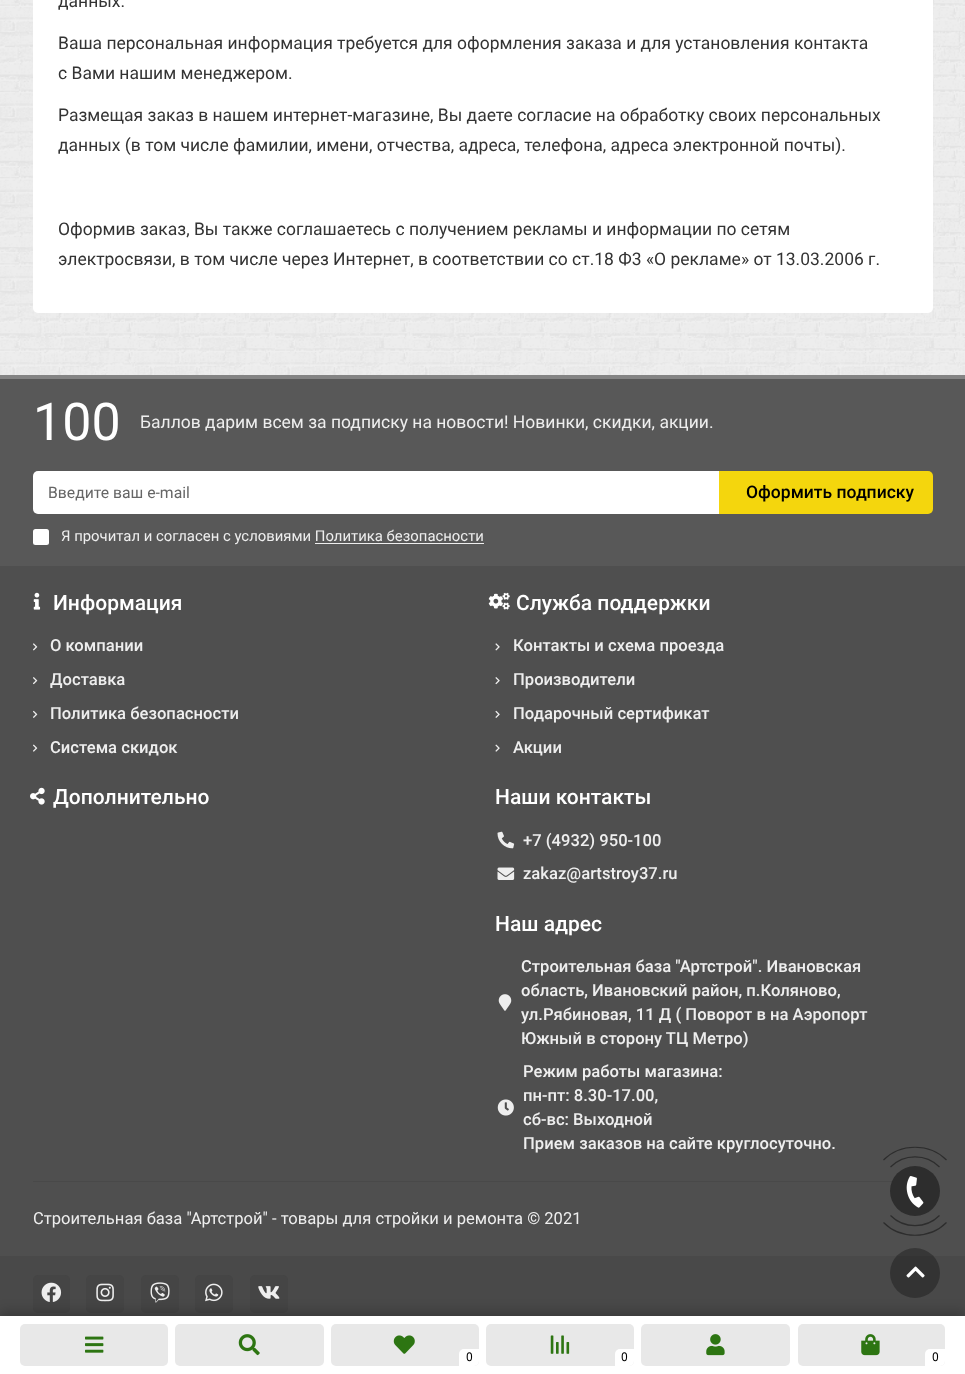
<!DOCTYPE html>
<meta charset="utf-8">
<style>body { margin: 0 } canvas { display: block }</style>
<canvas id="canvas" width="965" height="1374"></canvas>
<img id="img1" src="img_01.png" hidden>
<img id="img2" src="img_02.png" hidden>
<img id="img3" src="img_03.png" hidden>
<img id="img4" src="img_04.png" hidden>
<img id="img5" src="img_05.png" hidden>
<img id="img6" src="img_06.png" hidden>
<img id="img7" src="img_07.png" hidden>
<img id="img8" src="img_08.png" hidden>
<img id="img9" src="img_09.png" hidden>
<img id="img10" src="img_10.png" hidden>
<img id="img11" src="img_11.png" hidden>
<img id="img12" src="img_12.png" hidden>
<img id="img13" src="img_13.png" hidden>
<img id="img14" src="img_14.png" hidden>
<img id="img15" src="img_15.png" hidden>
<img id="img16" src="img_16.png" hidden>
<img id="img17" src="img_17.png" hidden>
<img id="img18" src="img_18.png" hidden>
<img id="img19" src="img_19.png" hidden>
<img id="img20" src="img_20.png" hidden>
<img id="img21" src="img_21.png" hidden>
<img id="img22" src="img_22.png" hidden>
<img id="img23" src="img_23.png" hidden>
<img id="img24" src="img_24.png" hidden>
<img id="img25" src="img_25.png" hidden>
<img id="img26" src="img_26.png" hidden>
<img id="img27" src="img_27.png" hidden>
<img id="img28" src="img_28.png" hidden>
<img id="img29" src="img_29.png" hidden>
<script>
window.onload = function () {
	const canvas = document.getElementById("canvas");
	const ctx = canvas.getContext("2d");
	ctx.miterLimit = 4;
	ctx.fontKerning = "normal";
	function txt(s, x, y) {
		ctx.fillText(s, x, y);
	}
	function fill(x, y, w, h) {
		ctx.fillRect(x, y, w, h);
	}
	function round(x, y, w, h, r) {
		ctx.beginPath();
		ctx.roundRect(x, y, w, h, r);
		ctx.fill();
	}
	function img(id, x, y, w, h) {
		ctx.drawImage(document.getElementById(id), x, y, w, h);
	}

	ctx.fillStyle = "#FFFFFF";
	fill(0, 0, 965, 1374);
	img("img1", 0, 0, 965, 375);
	round(33, -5, 900, 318, 5);
	ctx.fillStyle = "#4F4F4F";
	fill(0, 566, 965, 690);
	ctx.fillStyle = "#848484";
	fill(0, 375, 965, 4);
	ctx.fillStyle = "#585858";
	fill(0, 379, 965, 187);
	ctx.fillStyle = "#FFFFFF";
	ctx.beginPath();
	ctx.roundRect(33, 471, 686, 43, [5, 0, 0, 5]);
	ctx.fill();
	ctx.fillStyle = "#F4D60D";
	ctx.beginPath();
	ctx.roundRect(719, 471, 214, 43, [0, 5, 5, 0]);
	ctx.fill();
	ctx.fillStyle = "#FFFFFF";
	round(33, 529, 16, 16, 2.5);
	ctx.fillStyle = "#EEEEEE";
	fill(315, 543, 169, 1);
	img("img2", 33, 592, 8, 18);
	img("img3", 33, 643, 5, 8);
	img("img4", 33, 677, 5, 8);
	img("img5", 33, 710, 5, 8);
	img("img6", 33, 744, 5, 8);
	img("img7", 488, 592, 22, 18);
	img("img8", 495, 643, 5, 8);
	img("img9", 495, 677, 5, 8);
	img("img10", 495, 710, 5, 8);
	img("img11", 495, 744, 5, 8);
	img("img12", 30, 787, 15, 18);
	img("img13", 497, 831, 18, 18);
	img("img14", 497, 867, 18, 13);
	img("img15", 498, 994, 14, 17);
	img("img16", 497, 1099, 17, 17);
	ctx.fillStyle = "#494949";
	fill(33, 1181, 860, 1);
	fill(0, 1256, 965, 60);
	ctx.fillStyle = "#454545";
	round(33, 1275, 37, 38, 5);
	img("img17", 41, 1282, 21, 20);
	round(86, 1275, 38, 38, 5);
	img("img18", 96, 1283, 18, 19);
	round(141, 1275, 38, 38, 5);
	img("img19", 150, 1282, 20, 21);
	round(195, 1275, 38, 38, 5);
	img("img20", 205, 1283, 18, 19);
	round(250, 1275, 38, 38, 5);
	img("img21", 258, 1286, 22, 13);
	ctx.fillStyle = "#2D2D2D";
	ctx.beginPath();
	ctx.arc(915, 1191, 25, 0, Math.PI * 2);
	ctx.fill();
	ctx.beginPath();
	ctx.moveTo(890.5, 1167);
	ctx.bezierCurveTo(904, 1153.5, 926, 1153.5, 939.5, 1167);
	ctx.strokeStyle = "#2D2D2D";
	ctx.lineWidth = 1.2;
	ctx.stroke();
	ctx.beginPath();
	ctx.moveTo(883.5, 1160);
	ctx.bezierCurveTo(900.5, 1143, 929.5, 1143, 946.5, 1160);
	ctx.stroke();
	ctx.beginPath();
	ctx.moveTo(939.5, 1215.5);
	ctx.bezierCurveTo(926, 1229, 904, 1229, 890.5, 1215.5);
	ctx.stroke();
	ctx.beginPath();
	ctx.moveTo(946.5, 1222.5);
	ctx.bezierCurveTo(929.5, 1239.5, 900.5, 1239.5, 883.5, 1222.5);
	ctx.stroke();
	img("img22", 906, 1176, 18, 32);
	ctx.fillStyle = "rgba(0, 0, 0, 0.2)";
	ctx.filter = "blur(6px)";
	ctx.beginPath();
	ctx.rect(0, 1311, 965, 59);
	ctx.fill();
	ctx.filter = "none";
	ctx.fillStyle = "rgba(0, 0, 0, 0.3)";
	ctx.beginPath();
	ctx.arc(915, 1273, 25, 0, Math.PI * 2);
	ctx.fill();
	img("img23", 906, 1266, 19, 12);
	ctx.fillStyle = "#FFFFFF";
	fill(0, 1316, 965, 58);
	ctx.fillStyle = "#E8E8E8";
	round(20, 1324, 148, 42, 5);
	img("img24", 85, 1336, 19, 17);
	round(175, 1324, 149, 42, 5);
	img("img25", 238, 1334, 22, 22);
	round(331, 1324, 148, 42, 5);
	img("img26", 393, 1335, 22, 19);
	ctx.fillStyle = "#FFFFFF";
	ctx.beginPath();
	ctx.roundRect(459, 1349, 20, 17, [5, 0, 5, 0]);
	ctx.fill();
	ctx.fillStyle = "#E8E8E8";
	round(486, 1324, 148, 42, 5);
	img("img27", 550, 1335, 20, 19);
	ctx.fillStyle = "#FFFFFF";
	ctx.beginPath();
	ctx.roundRect(615, 1349, 19, 17, [5, 0, 5, 0]);
	ctx.fill();
	ctx.fillStyle = "#E8E8E8";
	round(641, 1324, 149, 42, 5);
	img("img28", 706, 1334, 19, 22);
	round(798, 1324, 147, 42, 5);
	img("img29", 861, 1334, 19, 22);
	ctx.fillStyle = "#FFFFFF";
	ctx.beginPath();
	ctx.roundRect(925, 1349, 20, 17, [5, 0, 5, 0]);
	ctx.fill();
	ctx.font = "17.5px Roboto";
	ctx.fillStyle = "#333333";
	txt("данных.", 58, 7);
	txt("Ваша персональная информация требуется для оформления заказа и для установления контакта", 58, 49);
	txt("с Вами нашим менеджером.", 58, 79);
	txt("Размещая заказ в нашем интернет-магазине, Вы даете согласие на обработку своих персональных", 58, 121);
	txt("данных (в том числе фамилии, имени, отчества, адреса, телефона, адреса электронной почты).", 58, 151);
	txt("Оформив заказ, Вы также соглашаетесь с получением рекламы и информации по сетям", 58, 235);
	txt("электросвязи, в том числе через Интернет, в соответствии со ст.18 Ф3 «О рекламе» от 13.03.2006 г.", 58, 265);
	ctx.font = "52px Roboto";
	ctx.fillStyle = "#FFFFFF";
	txt("100", 33, 440);
	ctx.font = "17.5px Roboto";
	ctx.fillStyle = "#EEEEEE";
	txt("Баллов дарим всем за подписку на новости! Новинки, скидки, акции.", 140, 428);
	ctx.font = "15.75px Roboto";
	ctx.fillStyle = "#666666";
	txt("Введите ваш e-mail", 48, 498);
	ctx.font = "500 17.5px Roboto";
	ctx.fillStyle = "#000000";
	txt("Оформить подписку", 746, 498);
	ctx.font = "14.9px Roboto";
	ctx.fillStyle = "#EEEEEE";
	txt("Я прочитал и согласен с условиями Политика безопасности", 61, 541);
	ctx.font = "500 21px Roboto";
	ctx.fillStyle = "#FFFFFF";
	txt("Информация", 53, 610);
	ctx.font = "500 16.6px Roboto";
	ctx.fillStyle = "#EEEEEE";
	txt("О компании", 50, 651);
	txt("Доставка", 50, 685);
	txt("Политика безопасности", 50, 719);
	txt("Система скидок", 50, 753);
	ctx.font = "500 21px Roboto";
	ctx.fillStyle = "#FFFFFF";
	txt("Служба поддержки", 516, 610);
	ctx.font = "500 16.6px Roboto";
	ctx.fillStyle = "#EEEEEE";
	txt("Контакты и схема проезда", 513, 651);
	txt("Производители", 513, 685);
	txt("Подарочный сертификат", 513, 719);
	txt("Акции", 513, 753);
	ctx.font = "500 21px Roboto";
	ctx.fillStyle = "#FFFFFF";
	txt("Дополнительно", 53, 804);
	txt("Наши контакты", 495, 804);
	ctx.font = "500 16.6px Roboto";
	ctx.fillStyle = "#EEEEEE";
	txt("+7 (4932) 950-100", 523, 846);
	txt("zakaz@artstroy37.ru", 523, 879);
	ctx.font = "500 21px Roboto";
	ctx.fillStyle = "#FFFFFF";
	txt("Наш адрес", 495, 931);
	ctx.font = "500 16.6px Roboto";
	ctx.fillStyle = "#EEEEEE";
	txt("Строительная база \"Артстрой\". Ивановская", 521, 972);
	txt("область, Ивановский район, п.Коляново,", 521, 996);
	txt("ул.Рябиновая, 11 Д ( Поворот в на Аэропорт", 521, 1020);
	txt("Южный в сторону ТЦ Метро)", 521, 1044);
	txt("Режим работы магазина:", 523, 1077);
	txt("пн-пт: 8.30-17.00,", 523, 1101);
	txt("сб-вс: Выходной", 523, 1125);
	txt("Прием заказов на сайте круглосуточно.", 523, 1149);
	ctx.font = "16.6px Roboto";
	txt("Строительная база \"Артстрой\" - товары для стройки и ремонта © 2021", 33, 1224);
	ctx.font = "12px Roboto";
	ctx.fillStyle = "#000000";
	txt("0", 466, 1361);
	txt("0", 621, 1361);
	txt("0", 932, 1361);
};
</script>
